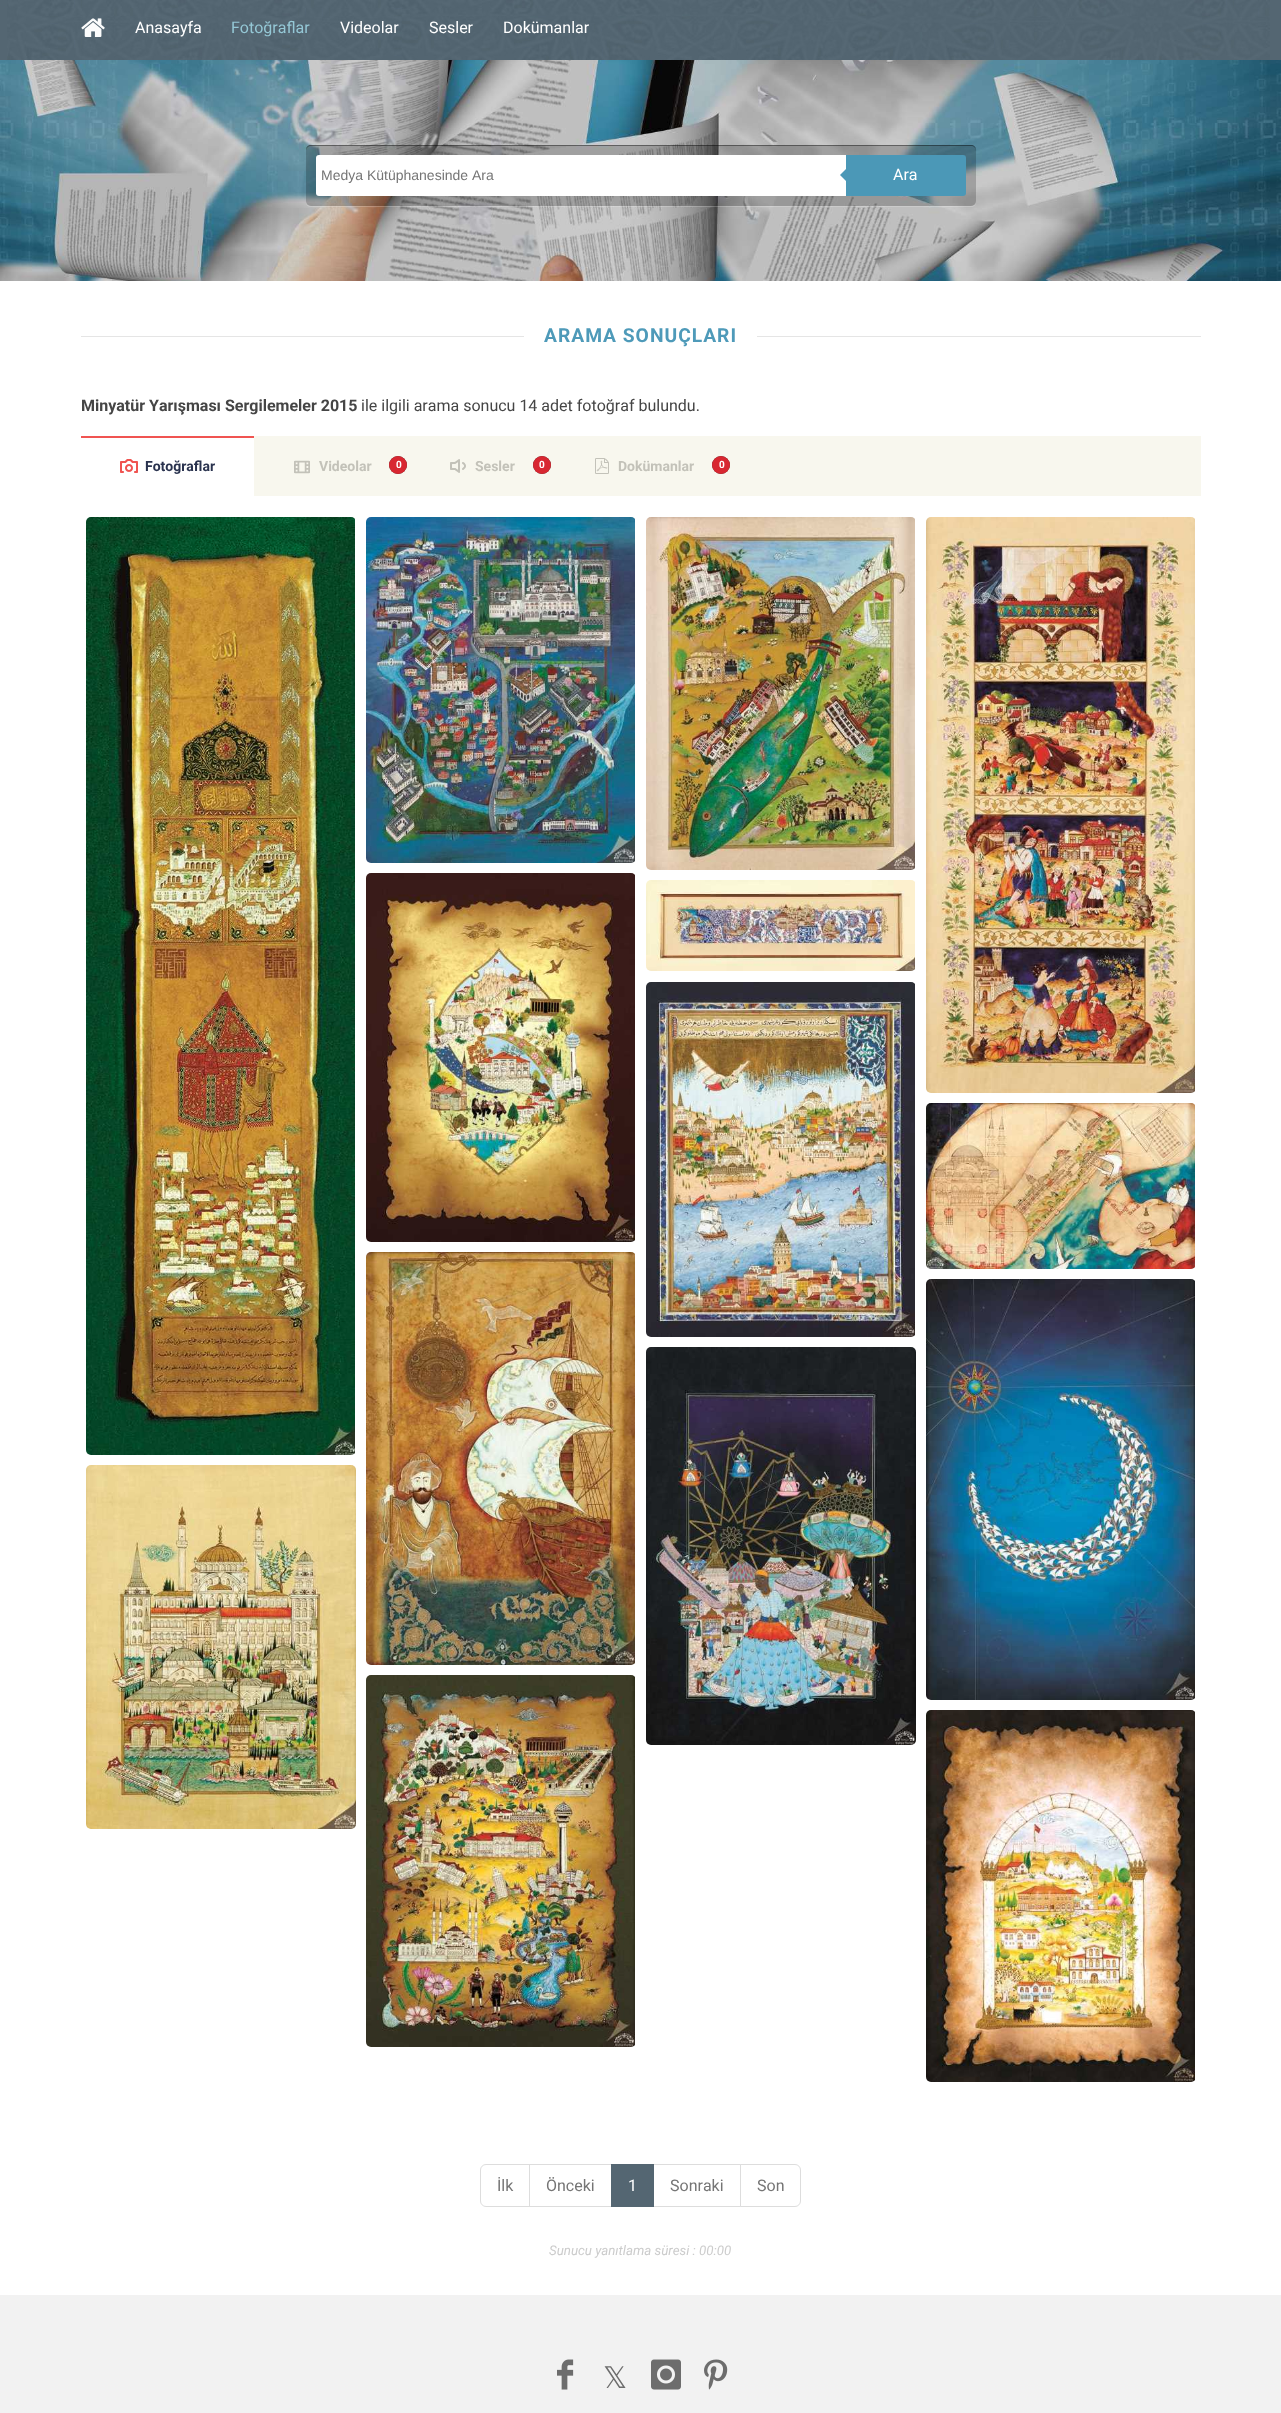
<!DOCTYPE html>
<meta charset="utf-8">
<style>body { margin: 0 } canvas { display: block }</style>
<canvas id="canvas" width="1281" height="2413"></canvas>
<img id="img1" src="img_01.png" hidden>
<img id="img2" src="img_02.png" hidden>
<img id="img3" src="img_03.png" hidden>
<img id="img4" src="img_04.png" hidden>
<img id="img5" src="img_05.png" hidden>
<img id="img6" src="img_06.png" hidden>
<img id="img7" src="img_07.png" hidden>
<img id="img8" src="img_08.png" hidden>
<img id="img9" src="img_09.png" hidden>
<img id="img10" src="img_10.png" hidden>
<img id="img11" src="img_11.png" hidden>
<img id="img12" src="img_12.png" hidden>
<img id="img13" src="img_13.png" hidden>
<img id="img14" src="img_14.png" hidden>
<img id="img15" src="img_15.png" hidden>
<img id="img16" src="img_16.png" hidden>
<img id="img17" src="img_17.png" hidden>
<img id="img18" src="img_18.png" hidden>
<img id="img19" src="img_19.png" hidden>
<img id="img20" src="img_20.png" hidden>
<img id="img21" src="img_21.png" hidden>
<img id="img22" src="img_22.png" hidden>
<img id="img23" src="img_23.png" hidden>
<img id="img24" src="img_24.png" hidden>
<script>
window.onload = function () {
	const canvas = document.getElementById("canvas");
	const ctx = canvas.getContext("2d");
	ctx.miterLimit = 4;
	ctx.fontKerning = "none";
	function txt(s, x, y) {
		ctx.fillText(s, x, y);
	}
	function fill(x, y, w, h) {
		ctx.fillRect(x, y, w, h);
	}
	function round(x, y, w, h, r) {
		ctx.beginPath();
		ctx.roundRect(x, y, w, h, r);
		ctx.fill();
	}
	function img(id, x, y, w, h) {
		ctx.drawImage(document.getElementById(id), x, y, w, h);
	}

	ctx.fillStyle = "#FFFFFF";
	fill(0, 0, 1281, 2413);
	img("img1", 0, 60, 1281, 221);
	ctx.fillStyle = "#546672";
	fill(0, 0, 1281, 60);
	img("img2", 7, 0, 1263, 60);
	img("img3", 81, 18, 24, 19);
	ctx.fillStyle = "rgba(255, 255, 255, 0.2)";
	ctx.beginPath();
	ctx.moveTo(306, 201);
	ctx.lineTo(306, 202);
	ctx.bezierCurveTo(306, 205, 308, 207, 311, 207);
	ctx.lineTo(971, 207);
	ctx.bezierCurveTo(974, 207, 976, 205, 976, 202);
	ctx.lineTo(976, 201);
	ctx.bezierCurveTo(976, 204, 974, 206, 971, 206);
	ctx.lineTo(311, 206);
	ctx.bezierCurveTo(308, 206, 306, 204, 306, 201);
	ctx.closePath();
	ctx.fill();
	ctx.fillStyle = "rgba(0, 0, 0, 0.2)";
	round(306, 145, 670, 61, 5);
	ctx.fillStyle = "rgba(0, 0, 0, 0.4)";
	ctx.beginPath();
	ctx.moveTo(311, 146);
	ctx.lineTo(971, 146);
	ctx.bezierCurveTo(974, 146, 976, 148, 976, 151);
	ctx.lineTo(976, 150);
	ctx.bezierCurveTo(976, 147, 974, 145, 971, 145);
	ctx.lineTo(311, 145);
	ctx.bezierCurveTo(308, 145, 306, 147, 306, 150);
	ctx.lineTo(306, 151);
	ctx.bezierCurveTo(306, 148, 308, 146, 311, 146);
	ctx.closePath();
	ctx.fill();
	ctx.fillStyle = "#FFFFFF";
	ctx.beginPath();
	ctx.roundRect(316, 155, 530, 41, [3, 0, 0, 3]);
	ctx.fill();
	ctx.fillStyle = "#4B98B7";
	ctx.beginPath();
	ctx.roundRect(846, 155, 120, 41, [0, 3, 3, 0]);
	ctx.fill();
	ctx.beginPath();
	ctx.moveTo(848, 167);
	ctx.lineTo(848, 183);
	ctx.lineTo(840, 175);
	ctx.closePath();
	ctx.fill();
	ctx.fillStyle = "#E5E5E5";
	fill(81, 336, 1120, 1);
	ctx.fillStyle = "#FFFFFF";
	fill(524, 336, 233, 1);
	ctx.fillStyle = "#F8F7EE";
	fill(254, 436, 947, 60);
	ctx.fillStyle = "#F05451";
	fill(81, 436, 173, 2);
	img("img4", 120, 459, 18, 14);
	img("img5", 294, 460, 16, 14);
	ctx.fillStyle = "#333333";
	ctx.filter = "blur(0.5px)";
	ctx.beginPath();
	ctx.roundRect(389, 456, 18, 18, 9);
	ctx.fill();
	ctx.filter = "none";
	ctx.fillStyle = "#D82731";
	ctx.beginPath();
	ctx.arc(398, 465, 9, 0, Math.PI * 2);
	ctx.fill();
	img("img6", 450, 459, 16, 14);
	ctx.fillStyle = "#333333";
	ctx.filter = "blur(0.5px)";
	ctx.beginPath();
	ctx.roundRect(533, 456, 18, 18, 9);
	ctx.fill();
	ctx.filter = "none";
	ctx.fillStyle = "#D82731";
	ctx.beginPath();
	ctx.arc(542, 465, 9, 0, Math.PI * 2);
	ctx.fill();
	img("img7", 595, 458, 14, 16);
	ctx.fillStyle = "#333333";
	ctx.filter = "blur(0.5px)";
	ctx.beginPath();
	ctx.roundRect(712, 456, 18, 18, 9);
	ctx.fill();
	ctx.filter = "none";
	ctx.fillStyle = "#D82731";
	ctx.beginPath();
	ctx.arc(721, 465, 9, 0, Math.PI * 2);
	ctx.fill();
	img("img8", 86, 517, 269, 938);
	img("img9", 366, 517, 269, 346);
	img("img10", 646, 517, 269, 353);
	img("img11", 926, 517, 269, 576);
	img("img12", 366, 873, 269, 369);
	img("img13", 646, 880, 269, 91);
	img("img14", 646, 982, 269, 355);
	img("img15", 926, 1103, 269, 166);
	img("img16", 86, 1465, 270, 364);
	img("img17", 366, 1252, 269, 413);
	img("img18", 646, 1347, 270, 398);
	img("img19", 926, 1279, 269, 421);
	img("img20", 366, 1675, 269, 372);
	img("img21", 926, 1710, 269, 372);
	ctx.beginPath();
	ctx.roundRect(480.5, 2164.5, 49, 42, [5.5, 0, 0, 5.5]);
	ctx.strokeStyle = "#DDDDDD";
	ctx.stroke();
	ctx.strokeRect(529.5, 2164.5, 82, 42);
	ctx.strokeRect(653.5, 2164.5, 87, 42);
	ctx.fillStyle = "#546672";
	fill(611, 2164, 43, 43);
	ctx.fillStyle = "#FFFFFF";
	ctx.beginPath();
	ctx.roundRect(740.5, 2164.5, 60, 42, [0, 5.5, 5.5, 0]);
	ctx.fill();
	ctx.stroke();
	ctx.fillStyle = "#F2F2F2";
	fill(0, 2295, 1281, 118);
	img("img22", 557, 2359, 17, 31);
	img("img23", 651, 2359, 30, 31);
	img("img24", 704, 2359, 24, 31);
	ctx.font = "16px Roboto";
	ctx.fillStyle = "#FFFFFF";
	txt("Anasayfa", 135, 33);
	ctx.fillStyle = "#95C8D6";
	txt("Fotoğraflar", 231, 33);
	ctx.fillStyle = "#FFFFFF";
	txt("Videolar", 340, 33);
	txt("Sesler", 429, 33);
	txt("Dokümanlar", 503, 33);
	ctx.font = "14px Liberation Sans";
	ctx.fillStyle = "#757575";
	txt("Medya Kütüphanesinde Ara", 321, 180);
	ctx.font = "16px Roboto";
	ctx.fillStyle = "#FFFFFF";
	txt("Ara", 893, 180);
	ctx.letterSpacing = "1px";
	ctx.font = "bold 19.25px Roboto";
	ctx.fillStyle = "#4E9AB9";
	txt("ARAMA SONUÇLARI", 544, 342);
	ctx.letterSpacing = "0px";
	ctx.font = "bold 16px Roboto";
	ctx.fillStyle = "#454545";
	txt("Minyatür Yarışması Sergilemeler 2015", 81, 411);
	ctx.font = "16px Roboto";
	txt("ile ilgili arama sonucu 14 adet fotoğraf bulundu.", 361, 411);
	ctx.font = "bold 14px Roboto";
	ctx.fillStyle = "#29324E";
	txt("Fotoğraflar", 145, 471);
	ctx.fillStyle = "#C3C2B9";
	txt("Videolar", 319, 471);
	ctx.font = "bold 10px Roboto";
	ctx.fillStyle = "#FFFFFF";
	txt("0", 396, 468);
	ctx.font = "bold 14px Roboto";
	ctx.fillStyle = "#C3C2B9";
	txt("Sesler", 475, 471);
	ctx.font = "bold 10px Roboto";
	ctx.fillStyle = "#FFFFFF";
	txt("0", 539, 468);
	ctx.font = "bold 14px Roboto";
	ctx.fillStyle = "#C3C2B9";
	txt("Dokümanlar", 618, 471);
	ctx.font = "bold 10px Roboto";
	ctx.fillStyle = "#FFFFFF";
	txt("0", 719, 468);
	ctx.font = "16px Roboto";
	ctx.fillStyle = "#757575";
	txt("İlk", 497, 2191);
	txt("Önceki", 546, 2191);
	ctx.fillStyle = "#FFFFFF";
	txt("1", 628, 2191);
	ctx.fillStyle = "#757575";
	txt("Sonraki", 670, 2191);
	txt("Son", 757, 2191);
	ctx.font = "italic 13.3px Roboto";
	ctx.fillStyle = "#CCCCCC";
	txt("Sunucu yanıtlama süresi : 00:00", 549, 2255);
	ctx.font = "30px DejaVu Sans";
	ctx.fillStyle = "#6D6D6D";
	txt("𝕏", 603, 2388);
};
</script>
